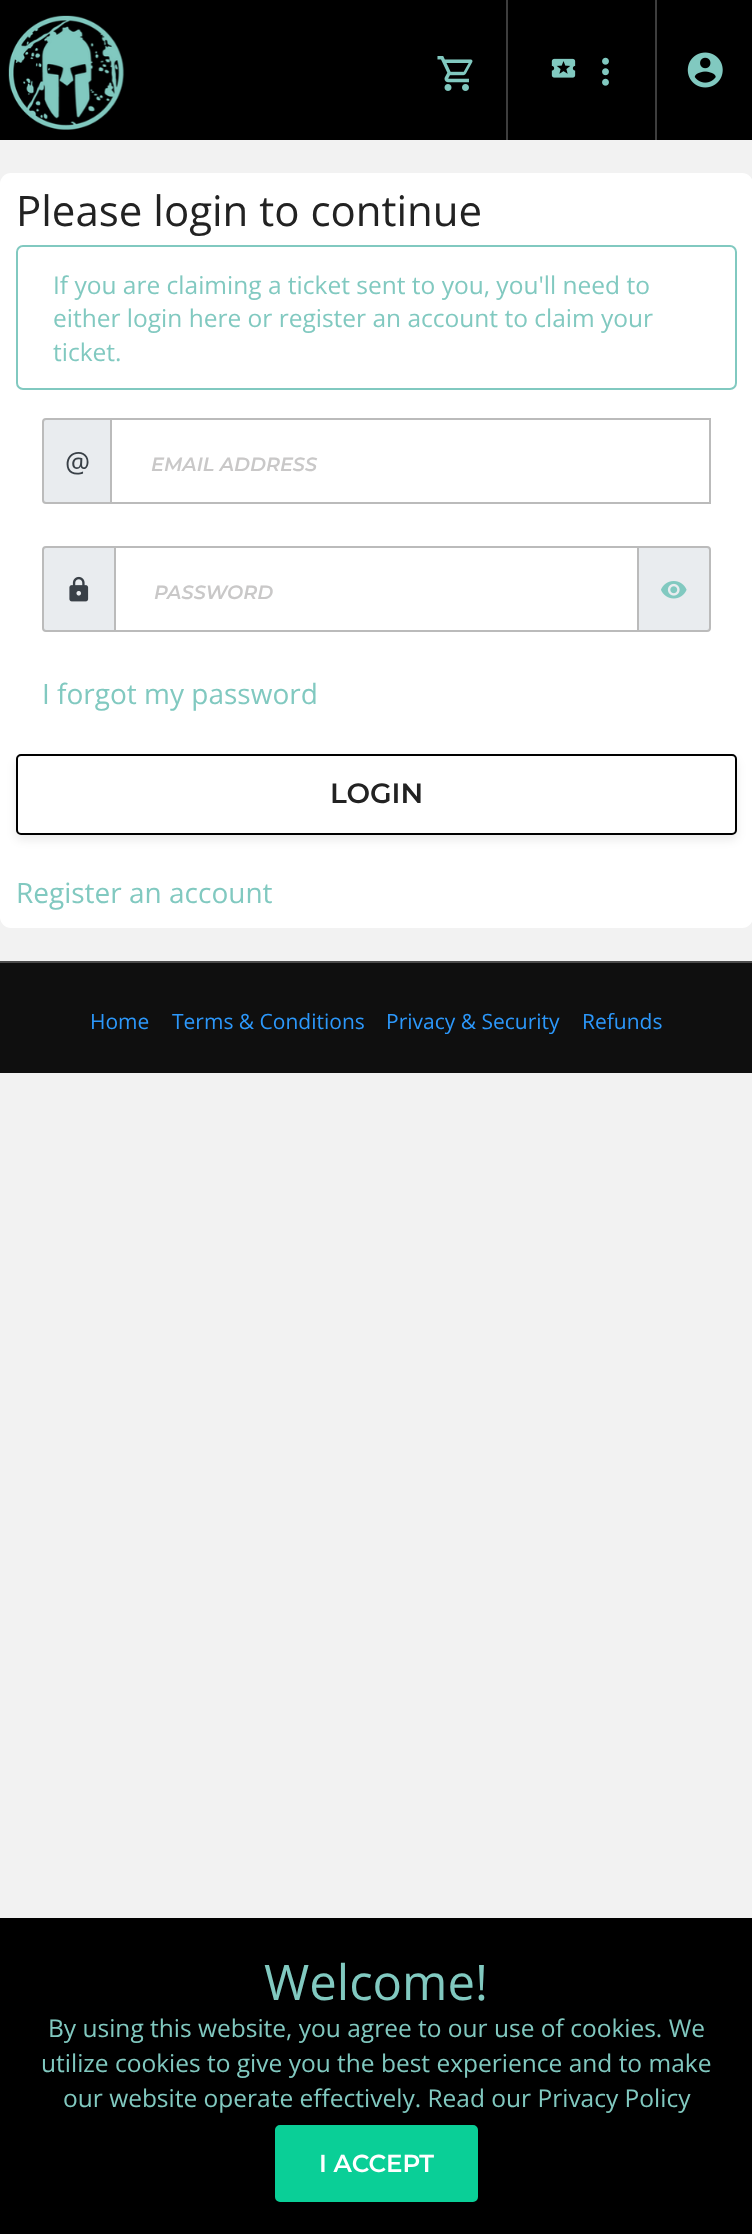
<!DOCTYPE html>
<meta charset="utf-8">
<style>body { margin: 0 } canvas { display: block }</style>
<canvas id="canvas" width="752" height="2234"></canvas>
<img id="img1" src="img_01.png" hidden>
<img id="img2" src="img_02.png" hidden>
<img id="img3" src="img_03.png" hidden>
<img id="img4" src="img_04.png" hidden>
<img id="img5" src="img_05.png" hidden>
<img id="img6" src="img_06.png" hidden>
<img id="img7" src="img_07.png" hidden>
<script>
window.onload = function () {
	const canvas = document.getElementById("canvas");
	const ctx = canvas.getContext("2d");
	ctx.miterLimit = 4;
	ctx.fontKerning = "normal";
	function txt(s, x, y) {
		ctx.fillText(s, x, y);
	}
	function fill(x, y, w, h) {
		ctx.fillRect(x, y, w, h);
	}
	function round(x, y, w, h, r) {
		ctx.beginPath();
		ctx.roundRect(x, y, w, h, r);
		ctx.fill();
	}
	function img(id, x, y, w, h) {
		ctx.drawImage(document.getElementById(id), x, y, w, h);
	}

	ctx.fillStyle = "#F2F2F2";
	fill(0, 0, 752, 2234);
	ctx.fillStyle = "#000000";
	fill(0, 0, 752, 140);
	img("img1", 8, 15, 117, 115);
	ctx.fillStyle = "#3D3D3D";
	fill(506, 0, 2, 140);
	img("img2", 437, 56, 36, 35);
	fill(655, 0, 2, 140);
	img("img3", 551, 58, 25, 20);
	img("img4", 602, 57, 7, 29);
	img("img5", 687, 52, 36, 36);
	ctx.fillStyle = "#FFFFFF";
	round(0, 173, 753, 755, 11);
	ctx.beginPath();
	ctx.roundRect(17, 246, 719, 143, 6);
	ctx.strokeStyle = "#81C9C0";
	ctx.lineWidth = 2;
	ctx.stroke();
	ctx.fillStyle = "#E9ECEF";
	ctx.beginPath();
	ctx.roundRect(43, 419, 68, 84, [3, 0, 0, 3]);
	ctx.fill();
	ctx.strokeStyle = "#BBBBBB";
	ctx.stroke();
	ctx.strokeRect(111, 419, 599, 84);
	ctx.beginPath();
	ctx.roundRect(43, 547, 72, 84, [3, 0, 0, 3]);
	ctx.fill();
	ctx.stroke();
	img("img6", 69, 576, 20, 26);
	ctx.beginPath();
	ctx.roundRect(638, 547, 72, 84, [0, 3, 3, 0]);
	ctx.fill();
	ctx.stroke();
	ctx.strokeRect(115, 547, 523, 84);
	img("img7", 661, 581, 26, 18);
	ctx.fillStyle = "rgba(0, 0, 0, 0.08)";
	ctx.filter = "blur(5px)";
	ctx.beginPath();
	ctx.roundRect(16, 760, 721, 80, 5);
	ctx.fill();
	ctx.filter = "none";
	ctx.fillStyle = "#FFFFFF";
	ctx.beginPath();
	ctx.roundRect(17, 755, 719, 79, 4);
	ctx.fill();
	ctx.strokeStyle = "#000000";
	ctx.stroke();
	ctx.fillStyle = "#0F0F0F";
	fill(0, 963, 752, 110);
	ctx.fillStyle = "#4C4C4C";
	fill(0, 961, 752, 2);
	ctx.fillStyle = "#000000";
	fill(0, 1918, 752, 316);
	ctx.fillStyle = "#0ACF97";
	ctx.beginPath();
	ctx.roundRect(276, 2126, 201, 75, 4);
	ctx.fill();
	ctx.strokeStyle = "#0ACF97";
	ctx.stroke();
	ctx.font = "42px Open Sans";
	ctx.fillStyle = "#222222";
	txt("Please login to continue", 16, 226);
	ctx.font = "24.5px Open Sans";
	ctx.fillStyle = "#81C9C0";
	txt("If you are claiming a ticket sent to you, you'll need to", 53, 294);
	txt("either login here or register an account to claim your", 53, 327);
	txt("ticket.", 53, 361);
	ctx.font = "28px Open Sans";
	ctx.fillStyle = "#394047";
	txt("@", 65, 472);
	ctx.font = "italic 600 19.25px Montserrat";
	ctx.fillStyle = "#C9C8C8";
	txt("EMAIL ADDRESS", 151, 471);
	txt("PASSWORD", 154, 599);
	ctx.font = "28px Open Sans";
	ctx.fillStyle = "#81C9C0";
	txt("I forgot my password", 42, 704);
	ctx.font = "600 28px Montserrat";
	ctx.fillStyle = "#222222";
	txt("LOGIN", 330, 803);
	ctx.font = "28px Open Sans";
	ctx.fillStyle = "#81C9C0";
	txt("Register an account", 16, 903);
	ctx.font = "21px Open Sans";
	ctx.fillStyle = "#2C98FB";
	txt("Home", 90, 1029);
	txt("Terms & Conditions", 172, 1029);
	txt("Privacy & Security", 386, 1029);
	txt("Refunds", 582, 1029);
	ctx.font = "49px Open Sans";
	ctx.fillStyle = "#81C9C0";
	txt("Welcome!", 264, 2000);
	ctx.font = "24.5px Open Sans";
	txt("By using this website, you agree to our use of cookies. We", 48, 2037);
	txt("utilize cookies to give you the best experience and to make", 41, 2072);
	txt("our website operate effectively. Read our Privacy Policy", 63, 2107);
	ctx.font = "600 24.5px Montserrat";
	ctx.fillStyle = "#FFFFFF";
	txt("I ACCEPT", 319, 2172);
};
</script>
